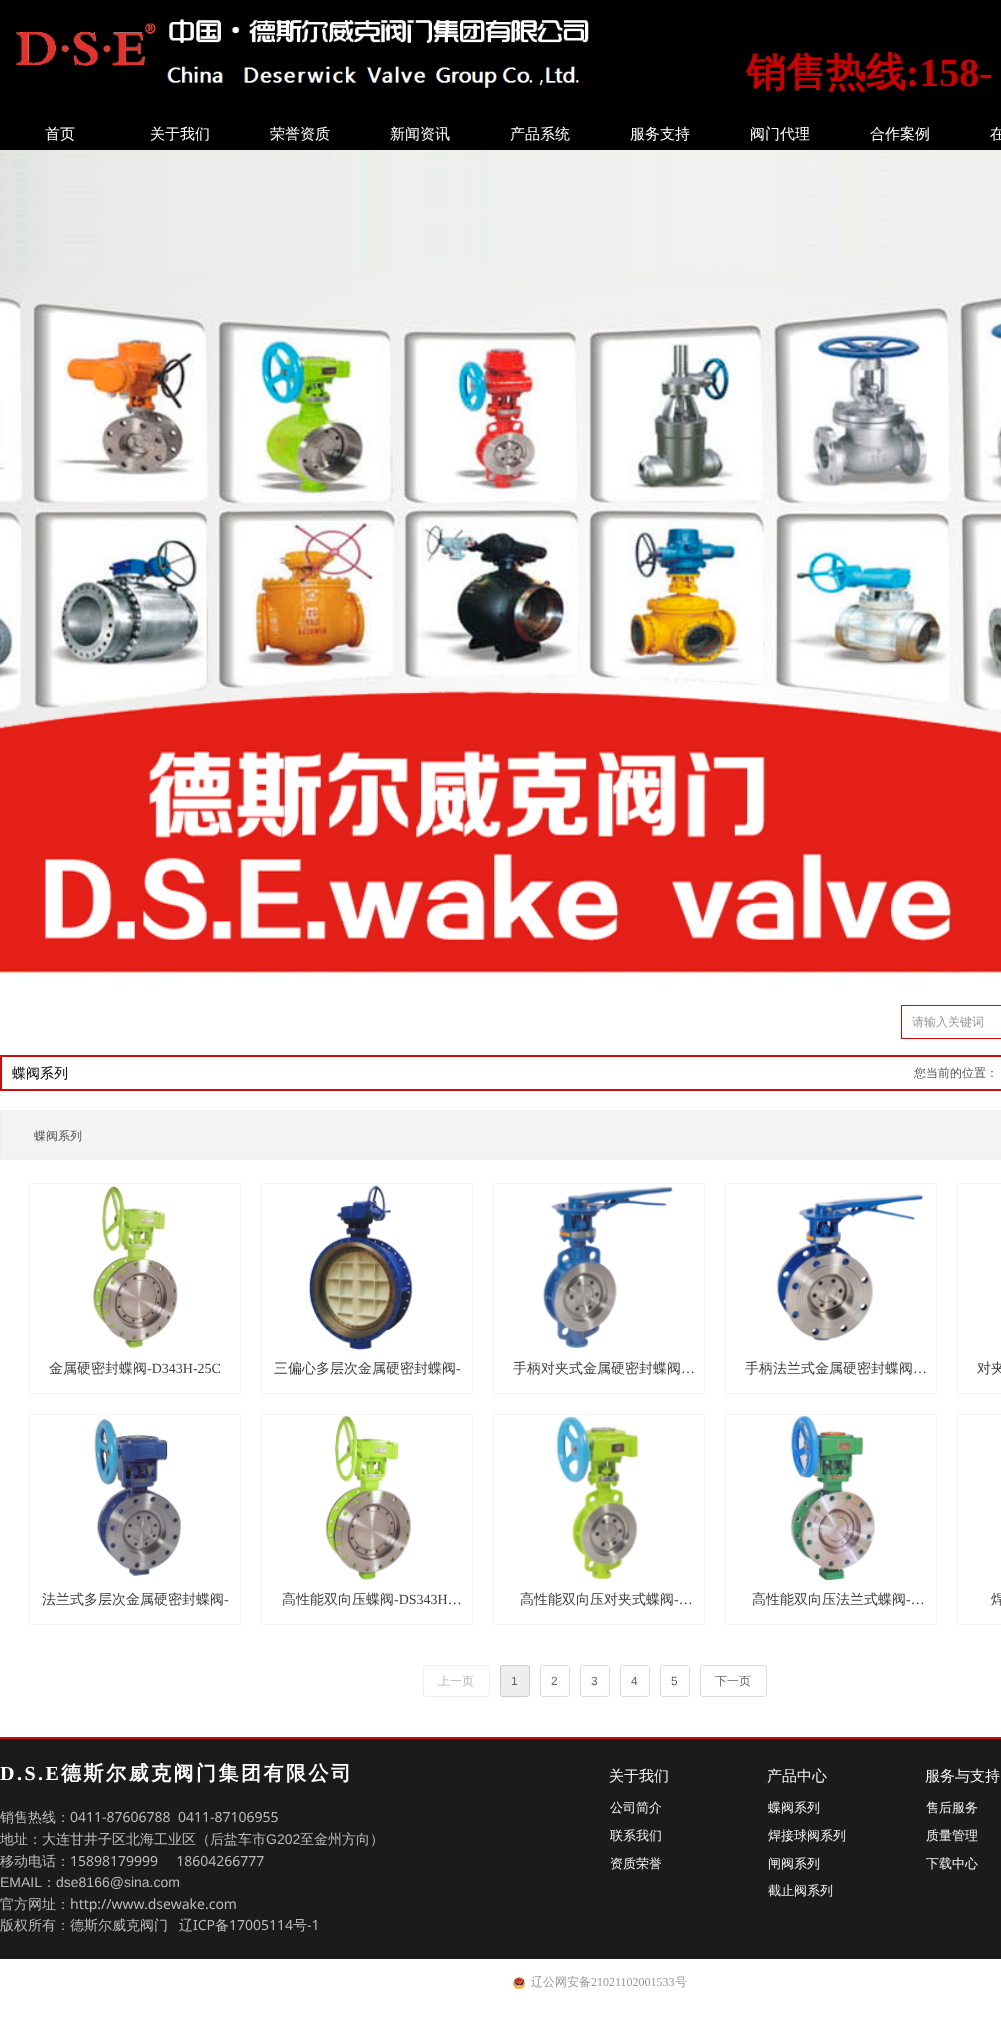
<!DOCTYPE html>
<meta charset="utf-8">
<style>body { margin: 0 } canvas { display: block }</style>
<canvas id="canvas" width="1001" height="2036"></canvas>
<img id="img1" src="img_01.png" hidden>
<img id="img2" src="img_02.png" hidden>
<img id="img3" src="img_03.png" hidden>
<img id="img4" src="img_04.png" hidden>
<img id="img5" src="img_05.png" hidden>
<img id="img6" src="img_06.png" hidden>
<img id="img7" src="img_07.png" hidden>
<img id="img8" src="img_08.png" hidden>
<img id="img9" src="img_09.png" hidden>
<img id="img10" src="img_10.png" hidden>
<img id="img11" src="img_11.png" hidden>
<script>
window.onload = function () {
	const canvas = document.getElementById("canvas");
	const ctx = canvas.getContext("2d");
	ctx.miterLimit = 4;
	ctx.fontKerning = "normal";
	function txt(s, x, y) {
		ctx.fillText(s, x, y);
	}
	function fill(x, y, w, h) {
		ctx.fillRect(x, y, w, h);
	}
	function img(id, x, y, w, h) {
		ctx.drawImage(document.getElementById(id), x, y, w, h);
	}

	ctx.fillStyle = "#FFFFFF";
	fill(0, 0, 1001, 2036);
	ctx.fillStyle = "#000000";
	fill(0, 0, 1001, 150);
	img("img1", 16, 9, 573, 79);
	img("img2", 0, 150, 1001, 827);
	ctx.strokeStyle = "#CD0D0C";
	ctx.strokeRect(901.5, 1005.5, 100, 33);
	ctx.lineWidth = 2;
	ctx.strokeRect(1, 1056, 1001, 34);
	ctx.fillStyle = "#F3F3F3";
	ctx.beginPath();
	ctx.rect(0.5, 1110.5, 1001, 49);
	ctx.fill();
	ctx.strokeStyle = "#EEEEEE";
	ctx.lineWidth = 1;
	ctx.stroke();
	ctx.strokeStyle = "#F5F5F5";
	ctx.strokeRect(29.5, 1183.5, 211, 210);
	img("img3", 92, 1185, 86, 164);
	ctx.strokeRect(261.5, 1183.5, 211, 210);
	img("img4", 309, 1185, 104, 165);
	ctx.strokeRect(493.5, 1183.5, 211, 210);
	img("img5", 543, 1186, 130, 163);
	ctx.strokeRect(725.5, 1183.5, 211, 210);
	img("img6", 776, 1194, 147, 147);
	ctx.strokeRect(957.5, 1183.5, 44, 210);
	ctx.strokeRect(29.5, 1414.5, 211, 210);
	img("img7", 94, 1419, 87, 157);
	ctx.strokeRect(261.5, 1414.5, 211, 210);
	img("img8", 325, 1416, 86, 164);
	ctx.strokeRect(493.5, 1414.5, 211, 210);
	img("img9", 556, 1416, 83, 164);
	ctx.strokeRect(725.5, 1414.5, 211, 210);
	img("img10", 790, 1416, 85, 164);
	ctx.strokeRect(957.5, 1414.5, 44, 210);
	ctx.beginPath();
	ctx.roundRect(423.5, 1665.5, 66, 31, 2.5);
	ctx.strokeStyle = "#EEEEEE";
	ctx.stroke();
	ctx.fillStyle = "#EEEEEE";
	ctx.beginPath();
	ctx.roundRect(500.5, 1665.5, 29, 31, 2.5);
	ctx.fill();
	ctx.strokeStyle = "#CCCCCC";
	ctx.stroke();
	ctx.beginPath();
	ctx.roundRect(540.5, 1665.5, 29, 31, 2.5);
	ctx.strokeStyle = "#DDDDDD";
	ctx.stroke();
	ctx.beginPath();
	ctx.roundRect(580.5, 1665.5, 29, 31, 2.5);
	ctx.stroke();
	ctx.beginPath();
	ctx.roundRect(620.5, 1665.5, 29, 31, 2.5);
	ctx.stroke();
	ctx.beginPath();
	ctx.roundRect(660.5, 1665.5, 29, 31, 2.5);
	ctx.stroke();
	ctx.beginPath();
	ctx.roundRect(700.5, 1665.5, 66, 31, 2.5);
	ctx.stroke();
	ctx.fillStyle = "#1B1B1B";
	fill(0, 1739, 1001, 220);
	ctx.fillStyle = "#CD0D0C";
	fill(0, 1737, 1001, 2);
	img("img11", 513, 1977, 12, 12);
	ctx.font = "bold 40px WenQuanYi Zen Hei";
	ctx.fillStyle = "#CC0000";
	txt("销售热线", 746, 86);
	ctx.font = "bold 40px Liberation Serif";
	txt(":158-", 906, 86);
	ctx.font = "500 15px WenQuanYi Zen Hei";
	ctx.fillStyle = "#FFFFFF";
	txt("首页", 45, 139);
	txt("关于我们", 150, 139);
	txt("荣誉资质", 270, 139);
	txt("新闻资讯", 390, 139);
	txt("产品系统", 510, 139);
	txt("服务支持", 630, 139);
	txt("阀门代理", 750, 139);
	txt("合作案例", 870, 139);
	txt("在", 990, 139);
	ctx.font = "500 12px WenQuanYi Zen Hei";
	ctx.fillStyle = "#989898";
	txt("请输入关键词", 912, 1026);
	ctx.font = "500 14px WenQuanYi Zen Hei";
	ctx.fillStyle = "#000000";
	txt("蝶阀系列", 12, 1078);
	ctx.font = "500 12px WenQuanYi Zen Hei";
	ctx.fillStyle = "#555555";
	txt("您当前的位置：", 914, 1077);
	txt("蝶阀系列", 34, 1140);
	ctx.font = "500 14px WenQuanYi Zen Hei";
	ctx.fillStyle = "#404040";
	txt("金属硬密封蝶阀", 49, 1373);
	ctx.font = "14px Liberation Serif";
	txt("-D343H-25C", 147, 1373);
	ctx.font = "500 14px WenQuanYi Zen Hei";
	txt("三偏心多层次金属硬密封蝶阀", 274, 1373);
	ctx.font = "14px Liberation Serif";
	txt("-", 456, 1373);
	ctx.font = "500 14px WenQuanYi Zen Hei";
	txt("手柄对夹式金属硬密封蝶阀", 513, 1373);
	ctx.font = "14px Liberation Serif";
	txt("…", 681, 1373);
	ctx.font = "500 14px WenQuanYi Zen Hei";
	txt("手柄法兰式金属硬密封蝶阀", 745, 1373);
	ctx.font = "14px Liberation Serif";
	txt("…", 913, 1373);
	ctx.font = "500 14px WenQuanYi Zen Hei";
	txt("对夹", 977, 1373);
	txt("法兰式多层次金属硬密封蝶阀", 42, 1604);
	ctx.font = "14px Liberation Serif";
	txt("-", 224, 1604);
	ctx.font = "500 14px WenQuanYi Zen Hei";
	txt("高性能双向压蝶阀", 282, 1604);
	ctx.font = "14px Liberation Serif";
	txt("-DS343H…", 394, 1604);
	ctx.font = "500 14px WenQuanYi Zen Hei";
	txt("高性能双向压对夹式蝶阀", 520, 1604);
	ctx.font = "14px Liberation Serif";
	txt("-…", 674, 1604);
	ctx.font = "500 14px WenQuanYi Zen Hei";
	txt("高性能双向压法兰式蝶阀", 752, 1604);
	ctx.font = "14px Liberation Serif";
	txt("-…", 906, 1604);
	ctx.font = "500 14px WenQuanYi Zen Hei";
	txt("焊", 991, 1604);
	ctx.font = "500 12px WenQuanYi Zen Hei";
	ctx.fillStyle = "#B3B3B3";
	txt("上一页", 438, 1685);
	ctx.font = "12px Liberation Sans";
	ctx.fillStyle = "#666666";
	txt("1", 511, 1685);
	txt("2", 551, 1685);
	txt("3", 591, 1685);
	txt("4", 631, 1685);
	txt("5", 671, 1685);
	ctx.font = "500 12px WenQuanYi Zen Hei";
	txt("下一页", 715, 1685);
	ctx.letterSpacing = "2.5px";
	ctx.font = "bold 20px Liberation Serif";
	ctx.fillStyle = "#FFFFFF";
	txt("D.S.E", 0, 1780);
	ctx.font = "bold 20px WenQuanYi Zen Hei";
	txt("德斯尔威克阀门集团有限公司", 61, 1780);
	ctx.letterSpacing = "0px";
	ctx.font = "500 15px WenQuanYi Zen Hei";
	ctx.fillStyle = "#F3F3F3";
	txt("关于我们", 609, 1781);
	ctx.font = "500 13px WenQuanYi Zen Hei";
	txt("公司简介", 610, 1812);
	txt("联系我们", 610, 1840);
	txt("资质荣誉", 610, 1868);
	ctx.font = "500 15px WenQuanYi Zen Hei";
	txt("产品中心", 767, 1781);
	ctx.font = "500 13px WenQuanYi Zen Hei";
	txt("蝶阀系列", 768, 1812);
	txt("焊接球阀系列", 768, 1840);
	txt("闸阀系列", 768, 1868);
	txt("截止阀系列", 768, 1895);
	ctx.font = "500 15px WenQuanYi Zen Hei";
	txt("服务与支持", 925, 1781);
	ctx.font = "500 13px WenQuanYi Zen Hei";
	txt("售后服务", 926, 1812);
	txt("质量管理", 926, 1840);
	txt("下载中心", 926, 1868);
	ctx.font = "500 14px WenQuanYi Zen Hei";
	ctx.fillStyle = "#BBBBBB";
	txt("销售热线：", 0, 1822);
	ctx.font = "14px Noto Sans";
	txt("0411-87606788  0411-87106955", 70, 1822);
	ctx.font = "500 14px WenQuanYi Zen Hei";
	txt("地址：大连甘井子区北海工业区（后盐车市", 0, 1844);
	ctx.font = "14px Liberation Sans";
	txt("G202", 266, 1844);
	ctx.font = "500 14px WenQuanYi Zen Hei";
	txt("至金州方向）", 300, 1844);
	txt("移动电话：", 0, 1866);
	ctx.font = "14px Noto Sans";
	txt("15898179999     18604266777", 70, 1866);
	ctx.font = "14px Liberation Sans";
	txt("EMAIL", 0, 1887);
	ctx.font = "500 14px WenQuanYi Zen Hei";
	txt("：", 42, 1887);
	ctx.font = "14px Liberation Sans";
	txt("dse8166@sina.com", 56, 1887);
	ctx.font = "500 14px WenQuanYi Zen Hei";
	txt("官方网址：", 0, 1909);
	ctx.font = "14px Noto Sans";
	txt("http://www.dsewake.com", 70, 1909);
	ctx.font = "500 14px WenQuanYi Zen Hei";
	txt("版权所有：德斯尔威克阀门", 0, 1930);
	txt("辽", 179, 1930);
	ctx.font = "14px Noto Sans";
	txt("ICP", 193, 1930);
	ctx.font = "500 14px WenQuanYi Zen Hei";
	txt("备", 215, 1930);
	ctx.font = "14px Noto Sans";
	txt("17005114", 229, 1930);
	ctx.font = "500 14px WenQuanYi Zen Hei";
	txt("号", 293, 1930);
	ctx.font = "14px Noto Sans";
	txt("-1", 307, 1930);
	ctx.font = "500 12px WenQuanYi Zen Hei";
	ctx.fillStyle = "#989898";
	txt("辽公网安备", 531, 1986);
	ctx.font = "12px Liberation Serif";
	txt("21021102001533", 591, 1986);
	ctx.font = "500 12px WenQuanYi Zen Hei";
	txt("号", 675, 1986);
};
</script>
